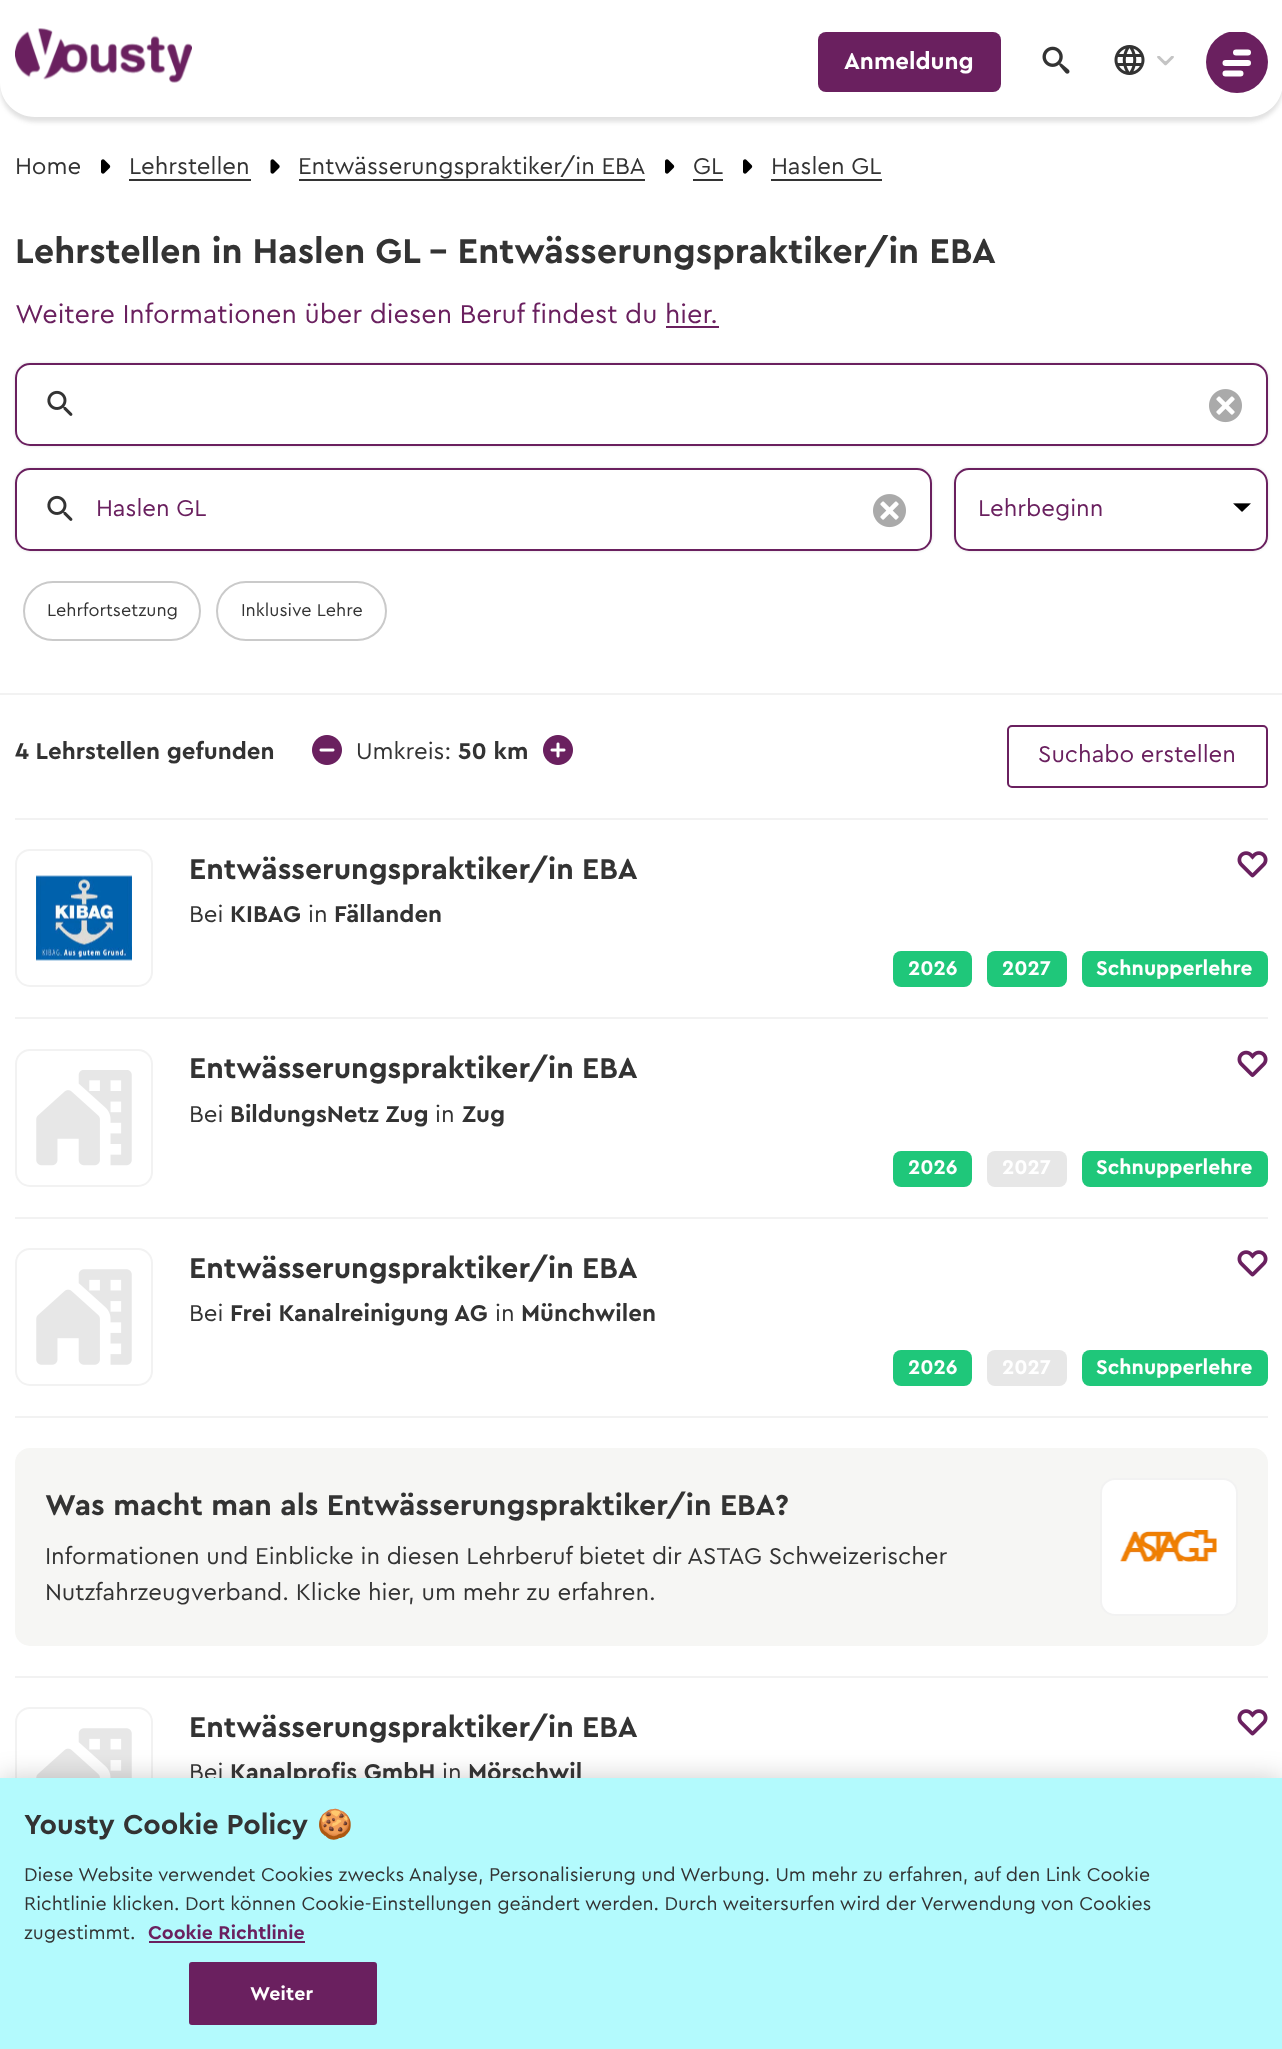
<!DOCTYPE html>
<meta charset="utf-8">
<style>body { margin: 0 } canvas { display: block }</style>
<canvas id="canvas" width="1282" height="2049"></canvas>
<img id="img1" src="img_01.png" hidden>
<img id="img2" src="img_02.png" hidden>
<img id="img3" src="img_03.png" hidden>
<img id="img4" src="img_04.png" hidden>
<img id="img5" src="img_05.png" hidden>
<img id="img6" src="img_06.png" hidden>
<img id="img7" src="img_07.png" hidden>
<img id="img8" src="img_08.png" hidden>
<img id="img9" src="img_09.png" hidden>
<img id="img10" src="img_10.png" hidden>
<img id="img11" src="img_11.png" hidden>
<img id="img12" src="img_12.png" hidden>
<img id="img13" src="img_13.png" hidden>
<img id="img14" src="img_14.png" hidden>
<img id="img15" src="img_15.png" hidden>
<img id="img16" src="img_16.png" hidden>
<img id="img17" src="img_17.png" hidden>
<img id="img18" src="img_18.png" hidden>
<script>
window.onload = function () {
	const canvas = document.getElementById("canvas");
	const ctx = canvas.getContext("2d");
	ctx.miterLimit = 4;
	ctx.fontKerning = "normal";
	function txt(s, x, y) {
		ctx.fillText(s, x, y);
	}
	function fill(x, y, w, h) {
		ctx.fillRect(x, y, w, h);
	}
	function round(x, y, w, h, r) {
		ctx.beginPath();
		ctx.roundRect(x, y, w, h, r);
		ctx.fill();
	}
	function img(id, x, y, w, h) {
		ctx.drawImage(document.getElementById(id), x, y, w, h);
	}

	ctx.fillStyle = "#FFFFFF";
	fill(0, 0, 1282, 2049);
	ctx.fillStyle = "rgba(51, 51, 51, 0.15)";
	ctx.filter = "blur(2px)";
	ctx.beginPath();
	ctx.roundRect(0, 5, 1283, 117, 35);
	ctx.fill();
	ctx.filter = "none";
	ctx.fillStyle = "#FFFFFF";
	ctx.beginPath();
	ctx.moveTo(0, 0);
	ctx.lineTo(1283, 0);
	ctx.lineTo(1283, 82);
	ctx.bezierCurveTo(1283, 101.5, 1267.5, 117, 1248, 117);
	ctx.lineTo(35, 117);
	ctx.bezierCurveTo(15.5, 117, 0, 101.5, 0, 82);
	ctx.closePath();
	ctx.fill();
	img("img1", 15, 28, 177, 55);
	ctx.fillStyle = "#6A205F";
	round(818, 32, 183, 60, 8);
	img("img2", 1042, 46, 28, 28);
	img("img3", 1114, 45, 31, 30);
	img("img4", 1157, 56, 17, 10);
	ctx.save();
	ctx.beginPath();
	ctx.rect(1206, 32, 62, 61);
	ctx.clip();
	ctx.beginPath();
	ctx.arc(1237, 62, 31, 0, Math.PI * 2);
	ctx.fill();
	ctx.restore();
	ctx.beginPath();
	ctx.moveTo(1236, 52.5);
	ctx.lineTo(1248, 52.5);
	ctx.moveTo(1225.5, 63);
	ctx.lineTo(1248, 63);
	ctx.moveTo(1225.5, 73.5);
	ctx.lineTo(1240.5, 73.5);
	ctx.strokeStyle = "#FFFFFF";
	ctx.lineWidth = 6;
	ctx.lineCap = "round";
	ctx.stroke();
	img("img5", 101, 159, 10, 15);
	ctx.fillStyle = "#333333";
	fill(129, 179, 122, 2);
	img("img6", 270, 159, 10, 15);
	fill(299, 179, 346, 2);
	img("img5", 665, 159, 10, 15);
	fill(693, 179, 30, 2);
	img("img5", 743, 159, 10, 15);
	fill(771, 179, 111, 2);
	ctx.fillStyle = "#F2F2F2";
	fill(0, 693, 1282, 2);
	ctx.fillStyle = "#6A205F";
	fill(666, 326, 53, 2);
	ctx.save();
	ctx.beginPath();
	ctx.moveTo(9, 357);
	ctx.lineTo(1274, 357);
	ctx.lineTo(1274, 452);
	ctx.lineTo(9, 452);
	ctx.closePath();
	ctx.moveTo(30, 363);
	ctx.lineTo(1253, 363);
	ctx.bezierCurveTo(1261.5, 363, 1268, 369.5, 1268, 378);
	ctx.lineTo(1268, 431);
	ctx.bezierCurveTo(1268, 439.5, 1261.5, 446, 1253, 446);
	ctx.lineTo(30, 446);
	ctx.bezierCurveTo(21.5, 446, 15, 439.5, 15, 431);
	ctx.lineTo(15, 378);
	ctx.bezierCurveTo(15, 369.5, 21.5, 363, 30, 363);
	ctx.closePath();
	ctx.clip("evenodd");
	ctx.fillStyle = "rgba(0, 0, 0, 0.12)";
	ctx.filter = "blur(1.5px)";
	ctx.beginPath();
	ctx.roundRect(15, 363, 1253, 83, 15);
	ctx.fill();
	ctx.filter = "none";
	ctx.restore();
	img("img7", 47, 390, 26, 26);
	ctx.beginPath();
	ctx.roundRect(16, 364, 1251, 81, 14);
	ctx.strokeStyle = "#6A205F";
	ctx.lineWidth = 2;
	ctx.stroke();
	img("img8", 1209, 389, 33, 34);
	ctx.save();
	ctx.beginPath();
	ctx.moveTo(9, 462);
	ctx.lineTo(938, 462);
	ctx.lineTo(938, 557);
	ctx.lineTo(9, 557);
	ctx.closePath();
	ctx.moveTo(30, 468);
	ctx.lineTo(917, 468);
	ctx.bezierCurveTo(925.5, 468, 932, 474.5, 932, 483);
	ctx.lineTo(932, 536);
	ctx.bezierCurveTo(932, 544.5, 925.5, 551, 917, 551);
	ctx.lineTo(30, 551);
	ctx.bezierCurveTo(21.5, 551, 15, 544.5, 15, 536);
	ctx.lineTo(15, 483);
	ctx.bezierCurveTo(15, 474.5, 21.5, 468, 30, 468);
	ctx.closePath();
	ctx.clip("evenodd");
	ctx.fillStyle = "rgba(0, 0, 0, 0.12)";
	ctx.filter = "blur(1.5px)";
	ctx.beginPath();
	ctx.roundRect(15, 468, 917, 83, 15);
	ctx.fill();
	ctx.filter = "none";
	ctx.restore();
	img("img7", 47, 495, 26, 26);
	ctx.beginPath();
	ctx.roundRect(16, 469, 915, 81, 14);
	ctx.stroke();
	img("img8", 873, 494, 33, 34);
	ctx.save();
	ctx.beginPath();
	ctx.moveTo(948, 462);
	ctx.lineTo(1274, 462);
	ctx.lineTo(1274, 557);
	ctx.lineTo(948, 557);
	ctx.closePath();
	ctx.moveTo(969, 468);
	ctx.lineTo(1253, 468);
	ctx.bezierCurveTo(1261.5, 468, 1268, 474.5, 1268, 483);
	ctx.lineTo(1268, 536);
	ctx.bezierCurveTo(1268, 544.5, 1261.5, 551, 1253, 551);
	ctx.lineTo(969, 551);
	ctx.bezierCurveTo(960.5, 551, 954, 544.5, 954, 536);
	ctx.lineTo(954, 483);
	ctx.bezierCurveTo(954, 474.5, 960.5, 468, 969, 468);
	ctx.closePath();
	ctx.clip("evenodd");
	ctx.fillStyle = "rgba(0, 0, 0, 0.12)";
	ctx.filter = "blur(1.5px)";
	ctx.beginPath();
	ctx.roundRect(954, 468, 314, 83, 15);
	ctx.fill();
	ctx.filter = "none";
	ctx.restore();
	ctx.beginPath();
	ctx.roundRect(955, 469, 312, 81, 14);
	ctx.stroke();
	img("img9", 1233, 503, 18, 9);
	ctx.beginPath();
	ctx.roundRect(24, 582, 176, 58, 29);
	ctx.strokeStyle = "#CACACA";
	ctx.stroke();
	ctx.beginPath();
	ctx.roundRect(217, 582, 169, 58, 29);
	ctx.stroke();
	img("img10", 312, 735, 30, 30);
	img("img11", 543, 735, 30, 30);
	ctx.beginPath();
	ctx.roundRect(1008, 726, 259, 61, 4);
	ctx.strokeStyle = "#6A205F";
	ctx.stroke();
	ctx.fillStyle = "#F2F2F2";
	fill(15, 818, 1253, 2);
	ctx.beginPath();
	ctx.roundRect(16, 850, 136, 136, 14);
	ctx.strokeStyle = "#F2F2F2";
	ctx.stroke();
	img("img12", 36, 875, 96, 86);
	img("img13", 1237, 851, 31, 27);
	ctx.fillStyle = "#1FC77A";
	round(893, 951, 79, 36, 8);
	round(987, 951, 80, 36, 8);
	round(1082, 951, 186, 36, 8);
	ctx.fillStyle = "#F2F2F2";
	fill(15, 1017, 1253, 2);
	ctx.beginPath();
	ctx.roundRect(16, 1050, 136, 136, 14);
	ctx.stroke();
	img("img14", 36, 1070, 96, 96);
	img("img15", 1237, 1050, 31, 27);
	ctx.fillStyle = "#1FC77A";
	round(893, 1151, 79, 36, 8);
	ctx.fillStyle = "#E7E7E7";
	round(987, 1151, 80, 36, 8);
	ctx.fillStyle = "#1FC77A";
	round(1082, 1151, 186, 36, 8);
	ctx.fillStyle = "#F2F2F2";
	fill(15, 1217, 1253, 2);
	ctx.beginPath();
	ctx.roundRect(16, 1249, 136, 136, 14);
	ctx.stroke();
	img("img16", 36, 1269, 96, 96);
	img("img13", 1237, 1250, 31, 27);
	ctx.fillStyle = "#1FC77A";
	round(893, 1350, 79, 36, 8);
	ctx.fillStyle = "#E7E7E7";
	round(987, 1350, 80, 36, 8);
	ctx.fillStyle = "#1FC77A";
	round(1082, 1350, 186, 36, 8);
	ctx.fillStyle = "#F2F2F2";
	fill(15, 1416, 1253, 2);
	ctx.fillStyle = "#F6F6F4";
	round(15, 1448, 1253, 198, 15);
	ctx.fillStyle = "#FFFFFF";
	ctx.beginPath();
	ctx.roundRect(1101, 1479, 136, 136, 14);
	ctx.fill();
	ctx.stroke();
	img("img17", 1120, 1530, 97, 32);
	ctx.fillStyle = "#F2F2F2";
	fill(15, 1676, 1253, 2);
	ctx.beginPath();
	ctx.roundRect(16, 1708, 136, 136, 14);
	ctx.stroke();
	img("img18", 36, 1728, 96, 50);
	img("img13", 1237, 1709, 31, 27);
	ctx.fillStyle = "rgba(0, 0, 0, 0.2)";
	ctx.filter = "blur(13.5px)";
	ctx.beginPath();
	ctx.rect(0, 1778, 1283, 271);
	ctx.fill();
	ctx.filter = "none";
	ctx.font = "bold 24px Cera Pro";
	ctx.fillStyle = "#FFFFFF";
	txt("Anmeldung", 844, 69);
	ctx.font = "24px Cera Pro";
	ctx.fillStyle = "#333333";
	txt("Home", 15, 174);
	txt("Lehrstellen", 129, 174);
	txt("Entwässerungspraktiker/in EBA", 298, 174);
	txt("GL", 693, 174);
	txt("Haslen GL", 771, 174);
	ctx.font = "bold 36px Cera Pro";
	txt("Lehrstellen in Haslen GL - Entwässerungspraktiker/in EBA", 15, 263);
	ctx.font = "27.1px Cera Pro";
	ctx.fillStyle = "#6A205F";
	txt("Weitere Informationen über diesen Beruf findest du hier.", 15, 323);
	ctx.font = "24px Cera Pro";
	txt("Haslen GL", 96, 516);
	txt("Lehrbeginn", 978, 516);
	ctx.font = "18px Cera Pro";
	ctx.fillStyle = "#333333";
	txt("Lehrfortsetzung", 47, 616);
	txt("Inklusive Lehre", 241, 616);
	ctx.font = "bold 24px Cera Pro";
	txt("4 Lehrstellen gefunden", 15, 759);
	ctx.font = "24px Cera Pro";
	txt("Umkreis:", 356, 759);
	ctx.font = "bold 24px Cera Pro";
	txt("50 km", 458, 759);
	ctx.font = "24px Cera Pro";
	ctx.fillStyle = "#6A205F";
	txt("Suchabo erstellen", 1038, 762);
	ctx.font = "bold 30px Cera Pro";
	ctx.fillStyle = "#333333";
	txt("Entwässerungspraktiker/in EBA", 189, 879);
	ctx.font = "24px Cera Pro";
	txt("Bei", 189, 922);
	ctx.font = "bold 24px Cera Pro";
	txt("KIBAG", 230, 922);
	ctx.font = "24px Cera Pro";
	txt("in", 308, 922);
	ctx.font = "bold 24px Cera Pro";
	txt("Fällanden", 334, 922);
	ctx.font = "bold 21px Cera Pro";
	ctx.fillStyle = "#FFFFFF";
	txt("2026", 908, 975);
	txt("2027", 1002, 975);
	txt("Schnupperlehre", 1096, 975);
	ctx.font = "bold 30px Cera Pro";
	ctx.fillStyle = "#333333";
	txt("Entwässerungspraktiker/in EBA", 189, 1078);
	ctx.font = "24px Cera Pro";
	txt("Bei", 189, 1122);
	ctx.font = "bold 24px Cera Pro";
	txt("BildungsNetz Zug", 230, 1122);
	ctx.font = "24px Cera Pro";
	txt("in", 435, 1122);
	ctx.font = "bold 24px Cera Pro";
	txt("Zug", 462, 1122);
	ctx.font = "bold 21px Cera Pro";
	ctx.fillStyle = "#FFFFFF";
	txt("2026", 908, 1174);
	txt("2027", 1002, 1174);
	txt("Schnupperlehre", 1096, 1174);
	ctx.font = "bold 30px Cera Pro";
	ctx.fillStyle = "#333333";
	txt("Entwässerungspraktiker/in EBA", 189, 1278);
	ctx.font = "24px Cera Pro";
	txt("Bei", 189, 1321);
	ctx.font = "bold 24px Cera Pro";
	txt("Frei Kanalreinigung AG", 230, 1321);
	ctx.font = "24px Cera Pro";
	txt("in", 495, 1321);
	ctx.font = "bold 24px Cera Pro";
	txt("Münchwilen", 521, 1321);
	ctx.font = "bold 21px Cera Pro";
	ctx.fillStyle = "#FFFFFF";
	txt("2026", 908, 1374);
	txt("2027", 1002, 1374);
	txt("Schnupperlehre", 1096, 1374);
	ctx.font = "bold 30px Cera Pro";
	ctx.fillStyle = "#333333";
	txt("Was macht man als Entwässerungspraktiker/in EBA?", 45, 1515);
	ctx.font = "24px Cera Pro";
	txt("Informationen und Einblicke in diesen Lehrberuf bietet dir ASTAG Schweizerischer", 45, 1564);
	txt("Nutzfahrzeugverband. Klicke hier, um mehr zu erfahren.", 45, 1600);
	ctx.font = "bold 30px Cera Pro";
	txt("Entwässerungspraktiker/in EBA", 189, 1737);
	ctx.font = "24px Cera Pro";
	txt("Bei", 189, 1780);
	ctx.font = "bold 24px Cera Pro";
	txt("Kanalprofis GmbH", 230, 1780);
	ctx.font = "24px Cera Pro";
	txt("in", 442, 1780);
	ctx.font = "bold 24px Cera Pro";
	txt("Mörschwil", 468, 1780);
	ctx.fillStyle = "#B3FAFD";
	fill(0, 1778, 1282, 271);
	ctx.font = "bold 28.75px Cera Pro";
	ctx.fillStyle = "#333333";
	txt("Yousty Cookie Policy", 24, 1834);
	ctx.font = "bold 28.75px Noto Color Emoji";
	txt("🍪", 317, 1834);
	ctx.font = "19.5px Cera Pro";
	txt("Diese Website verwendet Cookies zwecks Analyse, Personalisierung und Werbung. Um mehr zu erfahren, auf den Link Cookie", 24, 1881);
	txt("Richtlinie klicken. Dort können Cookie-Einstellungen geändert werden. Durch weitersurfen wird der Verwendung von Cookies", 24, 1910);
	txt("zugestimmt.", 24, 1939);
	ctx.font = "bold 19.5px Cera Pro";
	ctx.fillStyle = "#6A205F";
	txt("Cookie Richtlinie", 148, 1939);
	fill(149, 1941, 156, 2);
	ctx.beginPath();
	ctx.roundRect(190, 1963, 186, 61, 2);
	ctx.fill();
	ctx.strokeStyle = "#6A205F";
	ctx.stroke();
	ctx.letterSpacing = "0.25px";
	ctx.fillStyle = "#FFFFFF";
	txt("Weiter", 250, 2000);
};
</script>
